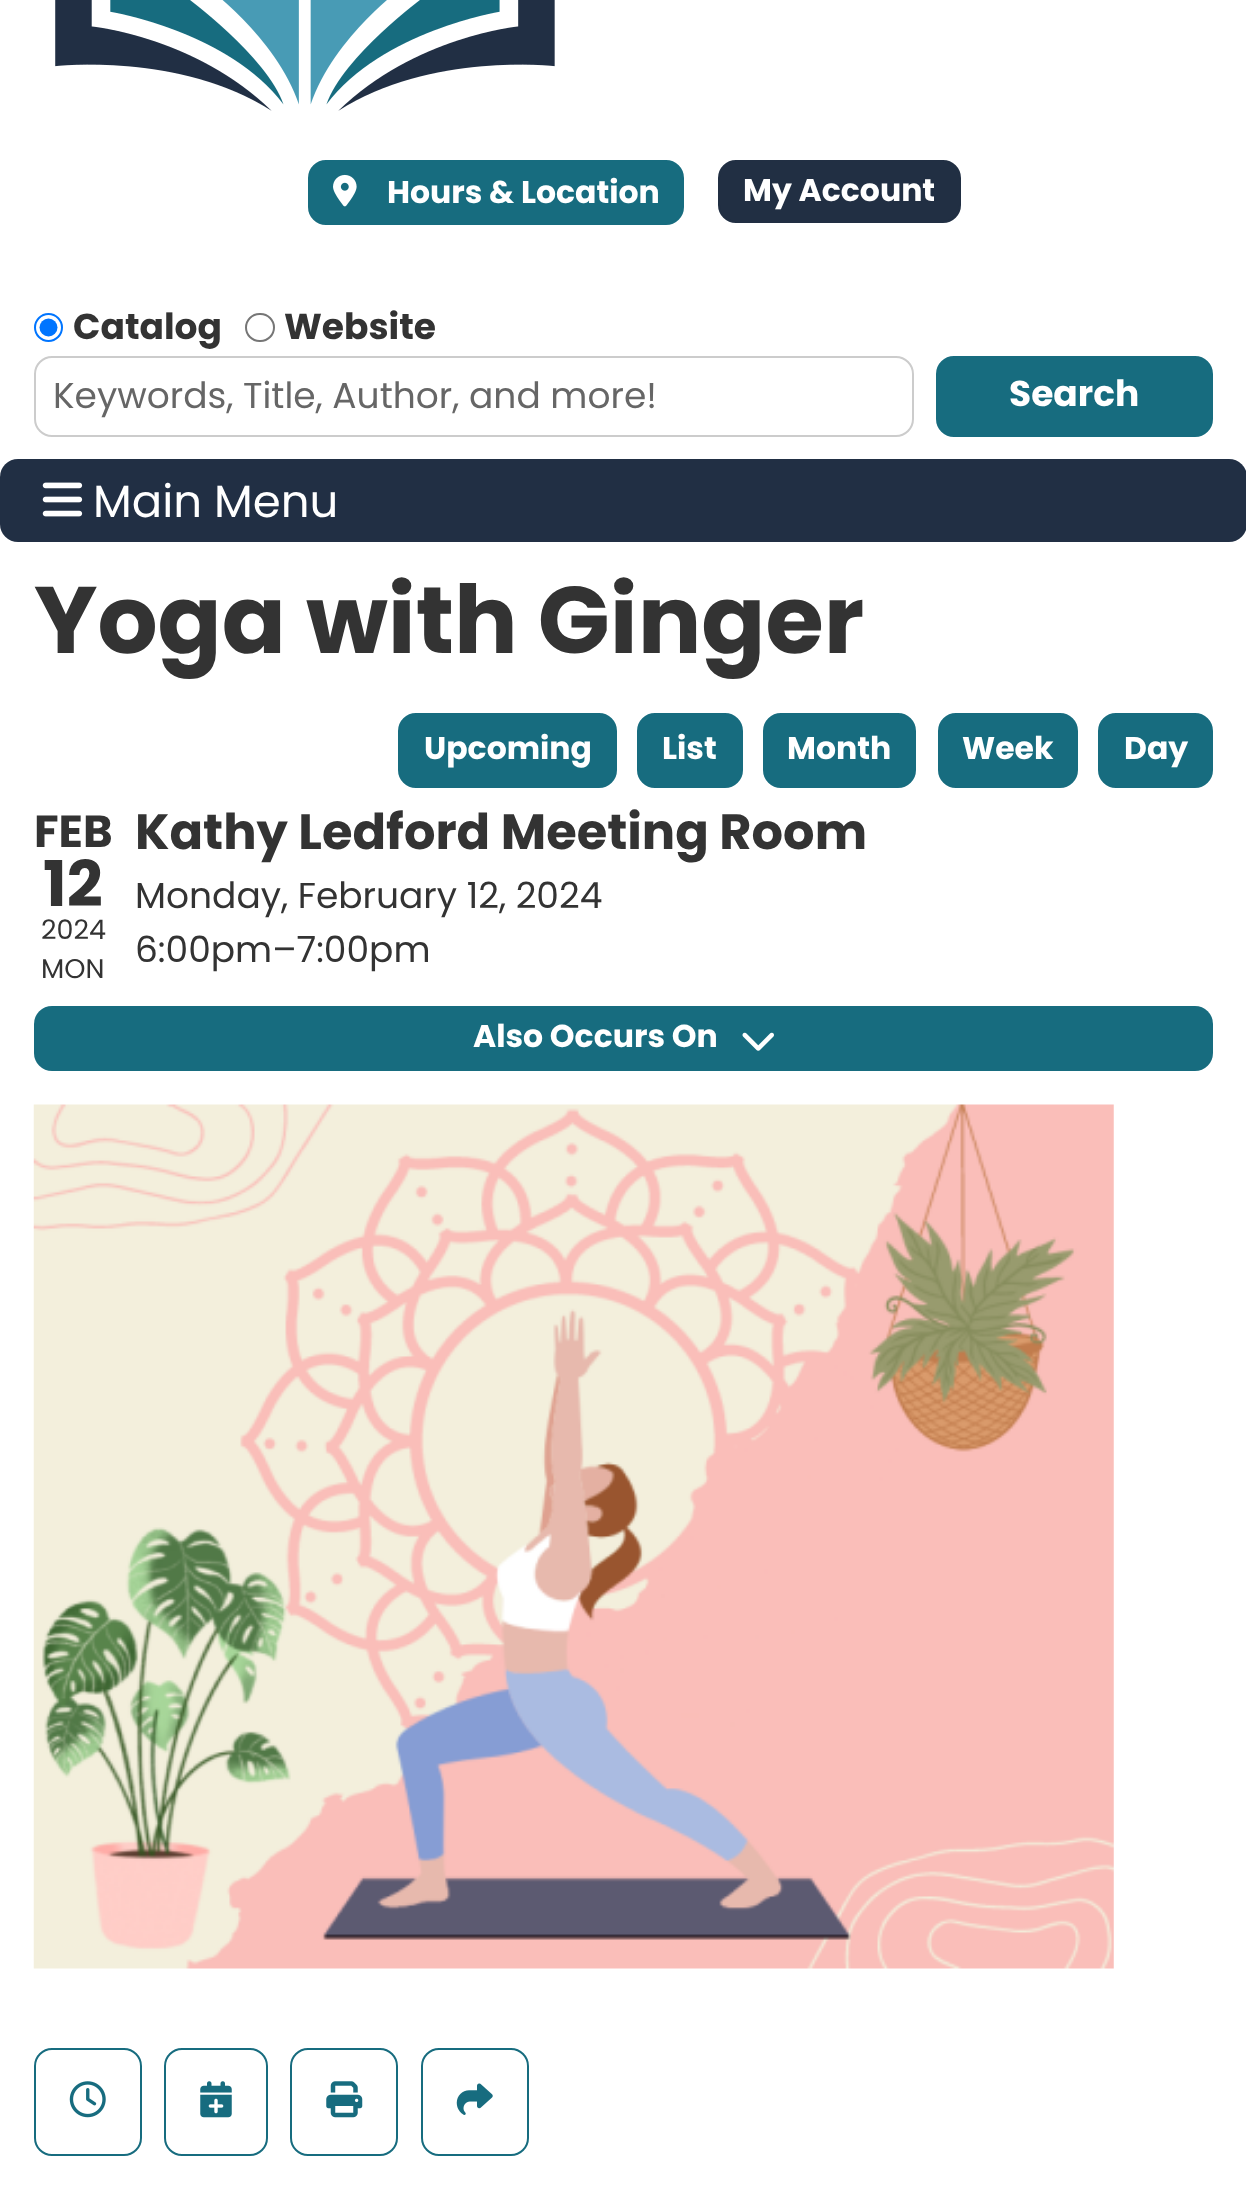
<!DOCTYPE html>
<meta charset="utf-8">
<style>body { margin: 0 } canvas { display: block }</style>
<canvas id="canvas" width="1246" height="2202"></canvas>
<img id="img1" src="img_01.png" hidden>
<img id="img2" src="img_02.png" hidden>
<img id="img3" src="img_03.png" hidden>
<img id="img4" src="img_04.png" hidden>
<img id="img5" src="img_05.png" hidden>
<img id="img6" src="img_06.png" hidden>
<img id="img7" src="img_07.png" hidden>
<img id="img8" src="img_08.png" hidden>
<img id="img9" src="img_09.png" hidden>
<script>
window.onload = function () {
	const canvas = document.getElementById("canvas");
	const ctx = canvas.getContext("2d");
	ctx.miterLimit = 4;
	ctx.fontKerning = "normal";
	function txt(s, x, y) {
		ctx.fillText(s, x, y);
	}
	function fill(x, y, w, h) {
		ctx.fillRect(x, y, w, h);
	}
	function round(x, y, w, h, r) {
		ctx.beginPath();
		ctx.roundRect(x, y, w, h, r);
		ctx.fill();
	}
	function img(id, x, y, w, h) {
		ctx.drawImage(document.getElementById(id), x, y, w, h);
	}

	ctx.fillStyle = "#FFFFFF";
	fill(0, 0, 1246, 2202);
	img("img1", 55, 0, 500, 111);
	ctx.fillStyle = "#176C7F";
	ctx.beginPath();
	ctx.roundRect(309, 161, 374, 63, 17);
	ctx.fill();
	ctx.strokeStyle = "#176C7F";
	ctx.lineWidth = 2;
	ctx.stroke();
	img("img2", 333, 174, 24, 33);
	ctx.fillStyle = "#212F43";
	ctx.beginPath();
	ctx.roundRect(719, 161, 241, 61, 17);
	ctx.fill();
	ctx.strokeStyle = "#212F43";
	ctx.stroke();
	ctx.beginPath();
	ctx.arc(48.5, 327.5, 13.5, 0, Math.PI * 2);
	ctx.strokeStyle = "#0075FF";
	ctx.stroke();
	ctx.fillStyle = "#0075FF";
	ctx.beginPath();
	ctx.arc(48.5, 327.5, 9, 0, Math.PI * 2);
	ctx.fill();
	ctx.beginPath();
	ctx.roundRect(246, 314, 28, 27, 13.5);
	ctx.strokeStyle = "#767676";
	ctx.stroke();
	ctx.beginPath();
	ctx.roundRect(35, 357, 878, 79, 17);
	ctx.strokeStyle = "#CCCCCC";
	ctx.stroke();
	ctx.fillStyle = "#176C7F";
	ctx.beginPath();
	ctx.roundRect(937, 357, 275, 79, 17);
	ctx.fill();
	ctx.strokeStyle = "#176C7F";
	ctx.stroke();
	ctx.fillStyle = "#212F44";
	round(0, 459, 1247, 83, 18);
	img("img3", 42, 482, 41, 35);
	ctx.fillStyle = "#176C7F";
	ctx.beginPath();
	ctx.roundRect(399, 714, 217, 73, 17);
	ctx.fill();
	ctx.stroke();
	ctx.beginPath();
	ctx.roundRect(638, 714, 104, 73, 17);
	ctx.fill();
	ctx.stroke();
	ctx.beginPath();
	ctx.roundRect(764, 714, 151, 73, 17);
	ctx.fill();
	ctx.stroke();
	ctx.beginPath();
	ctx.roundRect(939, 714, 138, 73, 17);
	ctx.fill();
	ctx.stroke();
	ctx.beginPath();
	ctx.roundRect(1099, 714, 113, 73, 17);
	ctx.fill();
	ctx.stroke();
	round(34, 1006, 1179, 65, 18);
	img("img4", 742, 1032, 32, 19);
	img("img5", 33, 1104, 1081, 865);
	ctx.beginPath();
	ctx.roundRect(35, 2049, 106, 106, 17);
	ctx.stroke();
	img("img6", 69, 2081, 37, 37);
	ctx.beginPath();
	ctx.roundRect(165, 2049, 102, 106, 17);
	ctx.stroke();
	img("img7", 200, 2081, 32, 37);
	ctx.beginPath();
	ctx.roundRect(291, 2049, 106, 106, 17);
	ctx.stroke();
	img("img8", 326, 2081, 37, 37);
	ctx.beginPath();
	ctx.roundRect(422, 2049, 106, 106, 17);
	ctx.stroke();
	img("img9", 456, 2083, 37, 32);
	ctx.font = "bold 31.5px Poppins";
	ctx.fillStyle = "#FFFFFF";
	txt("Hours & Location", 387, 203);
	txt("My Account", 743, 201);
	ctx.font = "bold 36px Poppins";
	ctx.fillStyle = "#333333";
	txt("Catalog", 73, 339);
	txt("Website", 284, 339);
	ctx.font = "36px Poppins";
	ctx.fillStyle = "#666666";
	txt("Keywords, Title, Author, and more!", 53, 408);
	ctx.font = "bold 36px Poppins";
	ctx.fillStyle = "#FFFFFF";
	txt("Search", 1009, 406);
	ctx.font = "45px Poppins";
	txt("Main Menu", 93, 517);
	ctx.font = "bold 94.5px Poppins";
	ctx.fillStyle = "#333333";
	txt("Yoga with Ginger", 34, 653);
	ctx.font = "bold 31.5px Poppins";
	ctx.fillStyle = "#FFFFFF";
	txt("Upcoming", 424, 759);
	txt("List", 662, 759);
	txt("Month", 787, 759);
	txt("Week", 962, 759);
	txt("Day", 1124, 759);
	ctx.font = "bold 45px Poppins";
	ctx.fillStyle = "#333333";
	txt("FEB", 34, 847);
	ctx.font = "bold 63px Poppins";
	txt("12", 43, 906);
	ctx.font = "27px Poppins";
	txt("2024", 41, 939);
	txt("MON", 41, 978);
	ctx.font = "bold 49.5px Poppins";
	txt("Kathy Ledford Meeting Room", 135, 849);
	ctx.font = "36px Poppins";
	txt("Monday, February 12, 2024", 135, 908);
	txt("6:00pm–7:00pm", 135, 962);
	ctx.font = "bold 31.5px Poppins";
	ctx.fillStyle = "#FFFFFF";
	txt("Also Occurs On", 473, 1047);
};
</script>
